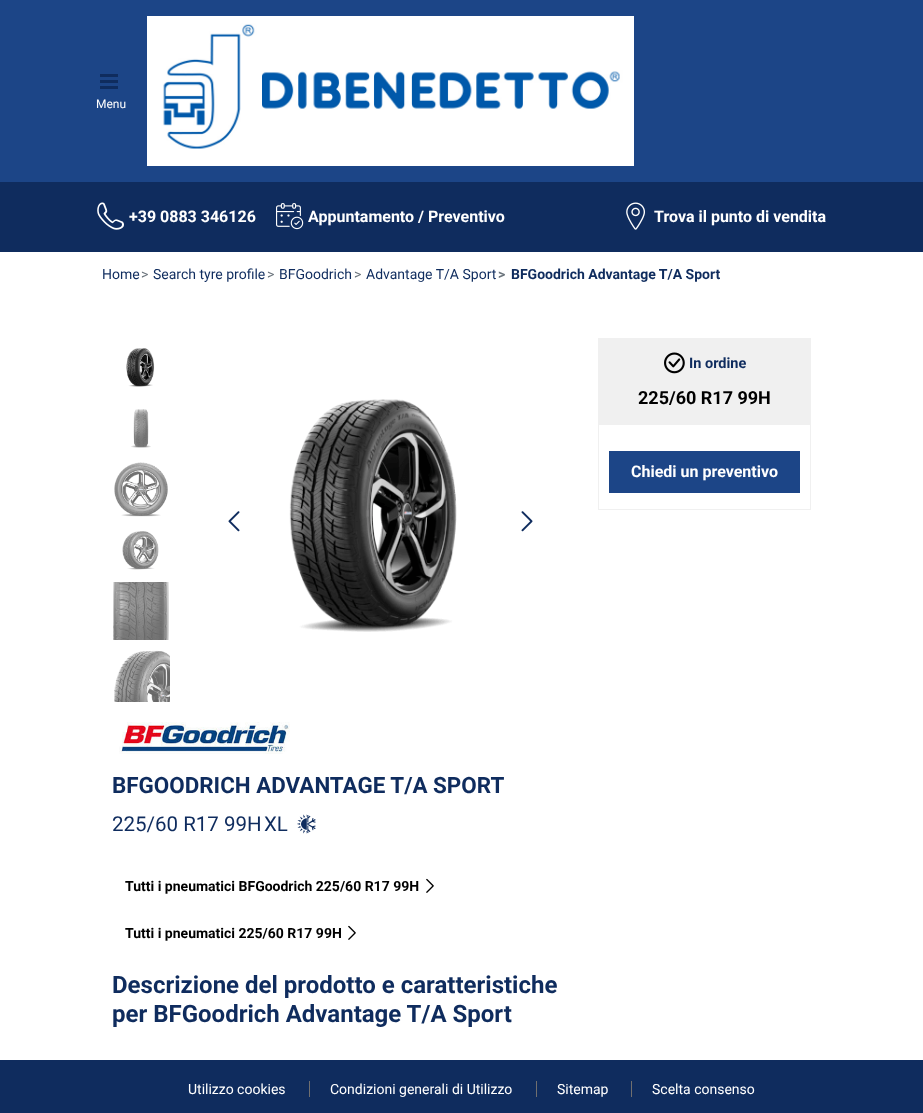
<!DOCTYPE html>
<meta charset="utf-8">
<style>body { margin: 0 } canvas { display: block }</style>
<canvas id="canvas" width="923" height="1113"></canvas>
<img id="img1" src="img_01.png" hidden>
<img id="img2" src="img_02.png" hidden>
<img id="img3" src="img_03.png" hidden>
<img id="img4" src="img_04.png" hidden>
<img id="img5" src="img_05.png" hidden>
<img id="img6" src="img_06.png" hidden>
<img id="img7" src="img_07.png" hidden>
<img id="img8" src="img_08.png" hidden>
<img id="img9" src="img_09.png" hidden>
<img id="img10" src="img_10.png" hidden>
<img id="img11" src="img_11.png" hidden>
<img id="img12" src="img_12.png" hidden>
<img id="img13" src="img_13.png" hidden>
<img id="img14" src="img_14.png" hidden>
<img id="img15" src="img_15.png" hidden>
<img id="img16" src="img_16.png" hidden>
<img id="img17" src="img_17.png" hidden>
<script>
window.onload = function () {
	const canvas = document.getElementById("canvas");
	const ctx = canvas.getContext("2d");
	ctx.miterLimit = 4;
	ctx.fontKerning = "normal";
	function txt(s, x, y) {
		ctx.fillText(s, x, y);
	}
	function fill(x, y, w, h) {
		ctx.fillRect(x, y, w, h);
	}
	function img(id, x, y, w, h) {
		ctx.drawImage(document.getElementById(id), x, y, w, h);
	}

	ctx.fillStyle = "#FFFFFF";
	fill(0, 0, 923, 1113);
	ctx.fillStyle = "#1C4587";
	fill(0, 0, 923, 182);
	ctx.fillStyle = "#0F2C5E";
	fill(100, 74, 18, 3);
	fill(100, 80, 18, 3);
	fill(100, 86, 18, 3);
	img("img1", 147, 16, 487, 150);
	fill(0, 182, 923, 70);
	img("img2", 97, 202, 27, 28);
	img("img3", 276, 203, 28, 27);
	img("img4", 626, 202, 19, 28);
	ctx.strokeStyle = "#F0F0F0";
	ctx.strokeRect(598.5, 338.5, 212, 171);
	ctx.fillStyle = "#F0F0F0";
	fill(599, 339, 211, 86);
	img("img5", 664, 352, 21, 22);
	ctx.fillStyle = "#1C4587";
	fill(609, 451, 191, 42);
	img("img6", 126, 348, 29, 39);
	img("img7", 131, 409, 20, 39);
	img("img8", 114, 462, 54, 55);
	img("img9", 122, 531, 37, 39);
	img("img10", 113, 582, 56, 58);
	img("img11", 114, 650, 56, 52);
	img("img12", 228, 511, 12, 21);
	img("img13", 289, 399, 168, 233);
	img("img14", 521, 511, 12, 21);
	img("img15", 119, 722, 171, 32);
	img("img16", 297, 814, 19, 20);
	img("img17", 426, 878, 8, 15);
	img("img17", 348, 925, 8, 15);
	ctx.fillStyle = "#0F2C5E";
	fill(0, 1060, 923, 53);
	ctx.fillStyle = "#706F6F";
	fill(309, 1081, 1, 16);
	fill(536, 1081, 1, 16);
	fill(631, 1081, 1, 16);
	ctx.font = "12px Roboto";
	ctx.fillStyle = "#FFFFFF";
	txt("Menu", 96, 108);
	ctx.font = "bold 16px Roboto";
	txt("+39 0883 346126", 129, 222);
	txt("Appuntamento / Preventivo", 308, 222);
	txt("Trova il punto di vendita", 654, 222);
	ctx.font = "14px Roboto";
	ctx.fillStyle = "#0F2C5E";
	txt("Home", 102, 279);
	ctx.fillStyle = "#6C757D";
	txt(">", 141, 279);
	ctx.fillStyle = "#0F2C5E";
	txt("Search tyre profile", 153, 279);
	ctx.fillStyle = "#6C757D";
	txt(">", 267, 279);
	ctx.fillStyle = "#0F2C5E";
	txt("BFGoodrich", 279, 279);
	ctx.fillStyle = "#6C757D";
	txt(">", 354, 279);
	ctx.fillStyle = "#0F2C5E";
	txt("Advantage T/A Sport", 366, 279);
	ctx.font = "bold 14px Roboto";
	ctx.fillStyle = "#6C757D";
	txt(">", 498, 279);
	ctx.fillStyle = "#0F2C5E";
	txt("BFGoodrich Advantage T/A Sport", 511, 279);
	ctx.font = "bold 14.5px Roboto";
	txt("In ordine", 689, 368);
	ctx.font = "bold 18px Roboto";
	ctx.fillStyle = "#000000";
	txt("225/60 R17 99H", 638, 404);
	ctx.font = "bold 16px Roboto";
	ctx.fillStyle = "#FFFFFF";
	txt("Chiedi un preventivo", 631, 477);
	ctx.font = "bold 22.4px Roboto";
	ctx.fillStyle = "#0F2C5E";
	txt("BFGOODRICH ADVANTAGE T/A SPORT", 112, 793);
	ctx.font = "20.5px Roboto";
	txt("225/60 R17 99H", 112, 831);
	txt("XL", 264, 831);
	ctx.font = "bold 14px Roboto";
	ctx.fillStyle = "#000000";
	txt("Tutti i pneumatici BFGoodrich 225/60 R17 99H", 125, 891);
	txt("Tutti i pneumatici 225/60 R17 99H", 125, 938);
	ctx.font = "bold 24px Roboto";
	ctx.fillStyle = "#0F2C5E";
	txt("Descrizione del prodotto e caratteristiche", 112, 993);
	txt("per BFGoodrich Advantage T/A Sport", 112, 1022);
	ctx.font = "14px Roboto";
	ctx.fillStyle = "#FFFFFF";
	txt("Utilizzo cookies", 188, 1094);
	txt("Condizioni generali di Utilizzo", 330, 1094);
	txt("Sitemap", 557, 1094);
	txt("Scelta consenso", 652, 1094);
};
</script>
